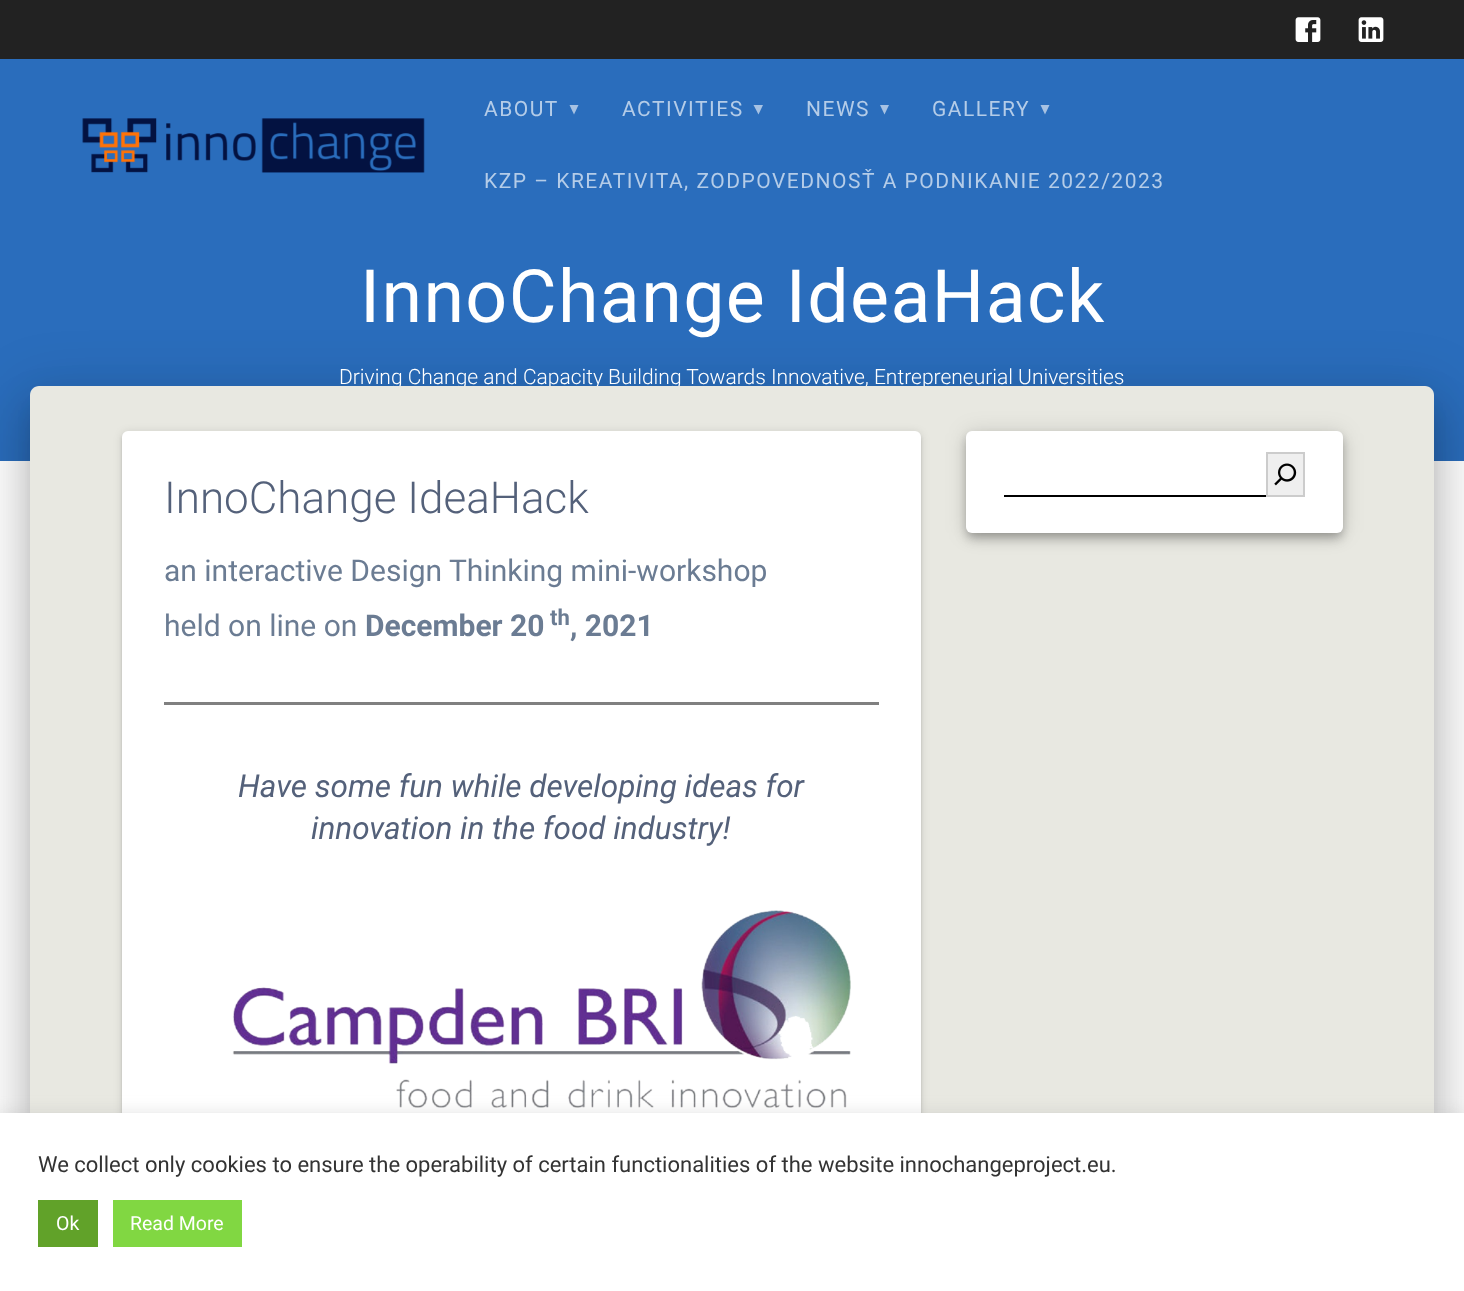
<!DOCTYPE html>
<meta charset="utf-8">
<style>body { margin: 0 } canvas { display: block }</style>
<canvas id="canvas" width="1464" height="1291"></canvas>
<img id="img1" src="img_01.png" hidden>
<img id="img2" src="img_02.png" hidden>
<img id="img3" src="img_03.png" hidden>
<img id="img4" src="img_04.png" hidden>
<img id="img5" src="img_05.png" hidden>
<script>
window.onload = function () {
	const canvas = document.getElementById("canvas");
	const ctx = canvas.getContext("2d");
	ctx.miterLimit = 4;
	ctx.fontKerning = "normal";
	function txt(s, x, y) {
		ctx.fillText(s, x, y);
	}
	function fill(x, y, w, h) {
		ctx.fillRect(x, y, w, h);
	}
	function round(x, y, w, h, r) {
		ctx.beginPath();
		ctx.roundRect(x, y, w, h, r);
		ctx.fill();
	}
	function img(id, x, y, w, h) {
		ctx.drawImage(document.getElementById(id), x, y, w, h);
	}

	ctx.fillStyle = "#FFFFFF";
	fill(0, 0, 1464, 1291);
	ctx.fillStyle = "#222222";
	fill(0, 0, 1464, 59);
	img("img1", 1295, 17, 26, 25);
	img("img2", 1358, 17, 26, 25);
	ctx.fillStyle = "#2A6DBC";
	fill(0, 59, 1464, 402);
	img("img3", 82, 118, 343, 55);
	ctx.fillStyle = "#A7C2E3";
	ctx.beginPath();
	ctx.moveTo(569.5, 105);
	ctx.lineTo(574, 114.5);
	ctx.lineTo(578.5, 105);
	ctx.closePath();
	ctx.fill();
	ctx.beginPath();
	ctx.moveTo(753.5, 105);
	ctx.lineTo(758.5, 114.5);
	ctx.lineTo(763, 105);
	ctx.closePath();
	ctx.fill();
	ctx.beginPath();
	ctx.moveTo(880, 105);
	ctx.lineTo(884.5, 114.5);
	ctx.lineTo(889, 105);
	ctx.closePath();
	ctx.fill();
	ctx.beginPath();
	ctx.moveTo(1040.5, 105);
	ctx.lineTo(1045, 114.5);
	ctx.lineTo(1049.5, 105);
	ctx.closePath();
	ctx.fill();
	ctx.fillStyle = "rgba(0, 0, 0, 0.12)";
	ctx.filter = "blur(28.5px)";
	ctx.beginPath();
	ctx.roundRect(20, 387, 1425, 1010, 20);
	ctx.fill();
	ctx.filter = "none";
	ctx.fillStyle = "rgba(0, 0, 0, 0.14)";
	ctx.filter = "blur(23px)";
	ctx.beginPath();
	ctx.roundRect(26, 411, 1413, 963, 14);
	ctx.fill();
	ctx.filter = "none";
	ctx.fillStyle = "rgba(0, 0, 0, 0.2)";
	ctx.filter = "blur(10px)";
	ctx.beginPath();
	ctx.rect(39, 410, 1386, 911);
	ctx.fill();
	ctx.filter = "none";
	ctx.letterSpacing = "1.5px";
	ctx.font = "21px Roboto";
	ctx.fillStyle = "#B4CCE8";
	txt("ABOUT", 484, 116);
	txt("ACTIVITIES", 622, 116);
	txt("NEWS", 806, 116);
	txt("GALLERY", 932, 116);
	txt("KZP – KREATIVITA, ZODPOVEDNOSŤ A PODNIKANIE 2022/2023", 484, 188);
	ctx.letterSpacing = "1.4px";
	ctx.font = "73.5px Roboto";
	ctx.fillStyle = "#FFFFFF";
	txt("InnoChange IdeaHack", 360, 322);
	ctx.letterSpacing = "0px";
	ctx.font = "300 21px Roboto";
	txt("Driving Change and Capacity Building Towards Innovative, Entrepreneurial Universities", 339, 384);
	ctx.fillStyle = "#E8E8E1";
	ctx.beginPath();
	ctx.moveTo(39, 386);
	ctx.lineTo(1425, 386);
	ctx.bezierCurveTo(1430, 386, 1434, 390, 1434, 395);
	ctx.lineTo(1434, 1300);
	ctx.lineTo(30, 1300);
	ctx.lineTo(30, 395);
	ctx.bezierCurveTo(30, 390, 34, 386, 39, 386);
	ctx.closePath();
	ctx.fill();
	ctx.fillStyle = "rgba(0, 0, 0, 0.12)";
	ctx.filter = "blur(4px)";
	ctx.beginPath();
	ctx.roundRect(122, 432, 799, 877, 6);
	ctx.fill();
	ctx.filter = "none";
	ctx.fillStyle = "rgba(0, 0, 0, 0.14)";
	ctx.filter = "blur(1.5px)";
	ctx.beginPath();
	ctx.roundRect(122, 434, 799, 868, 6);
	ctx.fill();
	ctx.filter = "none";
	ctx.fillStyle = "#FFFFFF";
	round(122, 431, 799, 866, 6);
	ctx.font = "300 44px Roboto";
	ctx.fillStyle = "#54617A";
	txt("InnoChange IdeaHack", 164, 513);
	ctx.font = "30px Roboto";
	ctx.fillStyle = "#6B7C93";
	txt("an interactive Design Thinking mini-workshop", 164, 581);
	txt("held on line on", 164, 636);
	ctx.font = "bold 30px Roboto";
	txt("December 20", 365, 636);
	ctx.font = "bold 22px Roboto";
	txt("th", 550, 625);
	ctx.font = "bold 30px Roboto";
	txt(", 2021", 570, 636);
	ctx.fillStyle = "#808080";
	fill(164, 702, 715, 3);
	ctx.font = "italic 31.5px Roboto";
	ctx.fillStyle = "#54617A";
	txt("Have some fun while developing ideas for", 238, 797);
	txt("innovation in the food industry!", 311, 839);
	img("img4", 232, 910, 619, 198);
	ctx.fillStyle = "rgba(0, 0, 0, 0.12)";
	ctx.filter = "blur(10.5px)";
	ctx.beginPath();
	ctx.roundRect(966, 432, 377, 102, 6);
	ctx.fill();
	ctx.filter = "none";
	ctx.fillStyle = "rgba(0, 0, 0, 0.14)";
	ctx.filter = "blur(6px)";
	ctx.beginPath();
	ctx.roundRect(966, 438, 377, 102, 6);
	ctx.fill();
	ctx.filter = "none";
	ctx.fillStyle = "rgba(0, 0, 0, 0.2)";
	ctx.filter = "blur(4px)";
	ctx.beginPath();
	ctx.roundRect(968, 437, 373, 99, 5);
	ctx.fill();
	ctx.filter = "none";
	ctx.fillStyle = "#FFFFFF";
	round(966, 431, 377, 102, 6);
	ctx.fillStyle = "#000000";
	fill(1004, 495, 262, 2);
	ctx.fillStyle = "#EFEFEF";
	ctx.beginPath();
	ctx.rect(1267, 453, 37, 43);
	ctx.fill();
	ctx.strokeStyle = "#CCCCCC";
	ctx.lineWidth = 2;
	ctx.stroke();
	img("img5", 1274, 463, 23, 23);
	ctx.fillStyle = "rgba(172, 171, 171, 0.3)";
	ctx.filter = "blur(7.5px)";
	ctx.beginPath();
	ctx.rect(0, 1112, 1464, 178);
	ctx.fill();
	ctx.filter = "none";
	ctx.fillStyle = "#FFFFFF";
	fill(0, 1113, 1464, 178);
	ctx.font = "22px Roboto";
	ctx.fillStyle = "#333333";
	txt("We collect only cookies to ensure the operability of certain functionalities of the website innochangeproject.eu.", 38, 1172);
	ctx.fillStyle = "#61A229";
	fill(38, 1200, 60, 47);
	ctx.font = "19.5px Roboto";
	ctx.fillStyle = "#FFFFFF";
	txt("Ok", 56, 1230);
	ctx.fillStyle = "#81D742";
	fill(113, 1200, 129, 47);
	ctx.fillStyle = "#FFFFFF";
	txt("Read More", 130, 1230);
};
</script>
